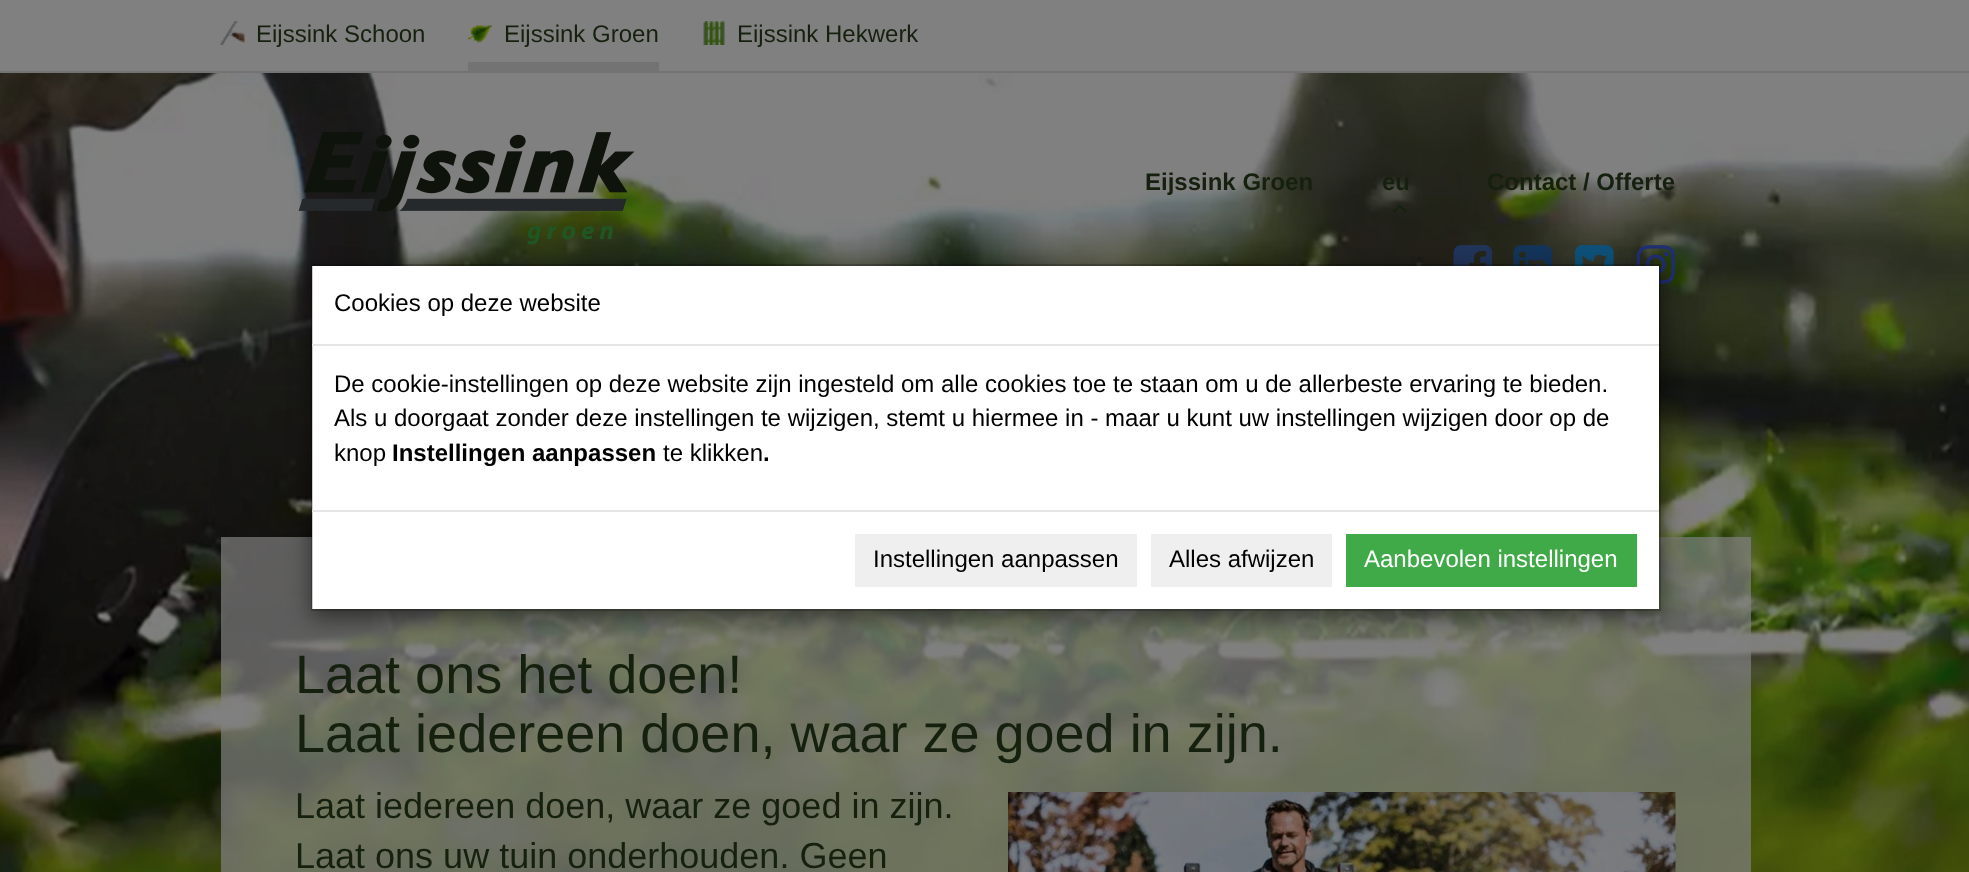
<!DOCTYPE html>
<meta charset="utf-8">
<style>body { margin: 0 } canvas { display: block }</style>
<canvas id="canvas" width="1969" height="872"></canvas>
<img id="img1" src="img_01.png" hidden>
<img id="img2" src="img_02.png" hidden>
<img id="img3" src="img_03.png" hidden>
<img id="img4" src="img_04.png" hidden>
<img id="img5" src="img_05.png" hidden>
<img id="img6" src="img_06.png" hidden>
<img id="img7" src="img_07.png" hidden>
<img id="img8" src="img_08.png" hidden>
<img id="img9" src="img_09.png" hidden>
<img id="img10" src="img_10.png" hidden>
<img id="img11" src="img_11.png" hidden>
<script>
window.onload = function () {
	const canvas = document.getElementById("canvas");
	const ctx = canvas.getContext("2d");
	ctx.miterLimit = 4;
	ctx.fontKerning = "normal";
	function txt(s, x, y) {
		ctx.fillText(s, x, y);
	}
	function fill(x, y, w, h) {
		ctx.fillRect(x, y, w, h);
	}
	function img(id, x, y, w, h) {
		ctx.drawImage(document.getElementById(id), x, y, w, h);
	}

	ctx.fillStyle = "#FFFFFF";
	fill(0, 0, 1969, 872);
	ctx.fillStyle = "#808080";
	fill(0, 0, 1969, 71);
	ctx.fillStyle = "#737373";
	fill(0, 71, 1969, 2);
	img("img1", 220, 21, 25, 24);
	fill(468, 62, 191, 9);
	img("img2", 468, 25, 24, 18);
	img("img3", 703, 21, 22, 24);
	img("img4", 0, 73, 1969, 799);
	img("img5", 298, 132, 337, 113);
	img("img6", 1393, 204, 14, 9);
	img("img7", 1453, 245, 40, 21);
	img("img8", 1513, 245, 40, 21);
	img("img9", 1575, 245, 39, 21);
	img("img10", 1636, 245, 40, 39);
	ctx.fillStyle = "rgba(128, 128, 128, 0.7)";
	fill(221, 537, 1530, 335);
	ctx.fillStyle = "rgba(0, 0, 0, 0.5)";
	ctx.filter = "blur(11px)";
	ctx.beginPath();
	ctx.rect(311, 272, 1350, 346);
	ctx.fill();
	ctx.filter = "none";
	ctx.fillStyle = "#FFFFFF";
	fill(312, 266, 1347, 343);
	ctx.strokeStyle = "rgba(0, 0, 0, 0.2)";
	ctx.lineWidth = 2;
	ctx.strokeRect(312, 265, 1348, 345);
	ctx.fillStyle = "#E5E5E5";
	fill(312, 344, 1347, 2);
	fill(312, 510, 1347, 2);
	ctx.fillStyle = "#EFEFEF";
	fill(855, 534, 282, 53);
	fill(1151, 534, 181, 53);
	ctx.fillStyle = "#40AA48";
	fill(1346, 534, 291, 53);
	img("img11", 1008, 792, 668, 80);
	ctx.font = "24px Liberation Sans";
	ctx.fillStyle = "#15210E";
	txt("Eijssink Schoon", 256, 42);
	txt("Eijssink Groen", 504, 42);
	txt("Eijssink Hekwerk", 737, 42);
	ctx.font = "bold 24px Liberation Sans";
	txt("Eijssink Groen", 1145, 190);
	txt("eu", 1382, 190);
	txt("Contact / Offerte", 1487, 190);
	ctx.font = "24px Liberation Sans";
	ctx.fillStyle = "#000000";
	txt("Cookies op deze website", 334, 311);
	txt("De cookie-instellingen op deze website zijn ingesteld om alle cookies toe te staan om u de allerbeste ervaring te bieden.", 334, 392);
	txt("Als u doorgaat zonder deze instellingen te wijzigen, stemt u hiermee in - maar u kunt uw instellingen wijzigen door op de", 334, 426);
	txt("knop", 334, 461);
	ctx.font = "bold 24px Liberation Sans";
	txt("Instellingen aanpassen", 392, 461);
	ctx.font = "24px Liberation Sans";
	txt("te klikken", 663, 461);
	ctx.font = "bold 24px Liberation Sans";
	txt(".", 763, 461);
	ctx.font = "24px Liberation Sans";
	txt("Instellingen aanpassen", 873, 567);
	txt("Alles afwijzen", 1169, 567);
	ctx.fillStyle = "#FFFFFF";
	txt("Aanbevolen instellingen", 1364, 567);
	ctx.font = "54px Liberation Sans";
	ctx.fillStyle = "#15210E";
	txt("Laat ons het doen!", 295, 693);
	txt("Laat iedereen doen, waar ze goed in zijn.", 295, 752);
	ctx.font = "36px Liberation Sans";
	txt("Laat iedereen doen, waar ze goed in zijn.", 295, 818);
	txt("Laat ons uw tuin onderhouden. Geen", 295, 868);
};
</script>
